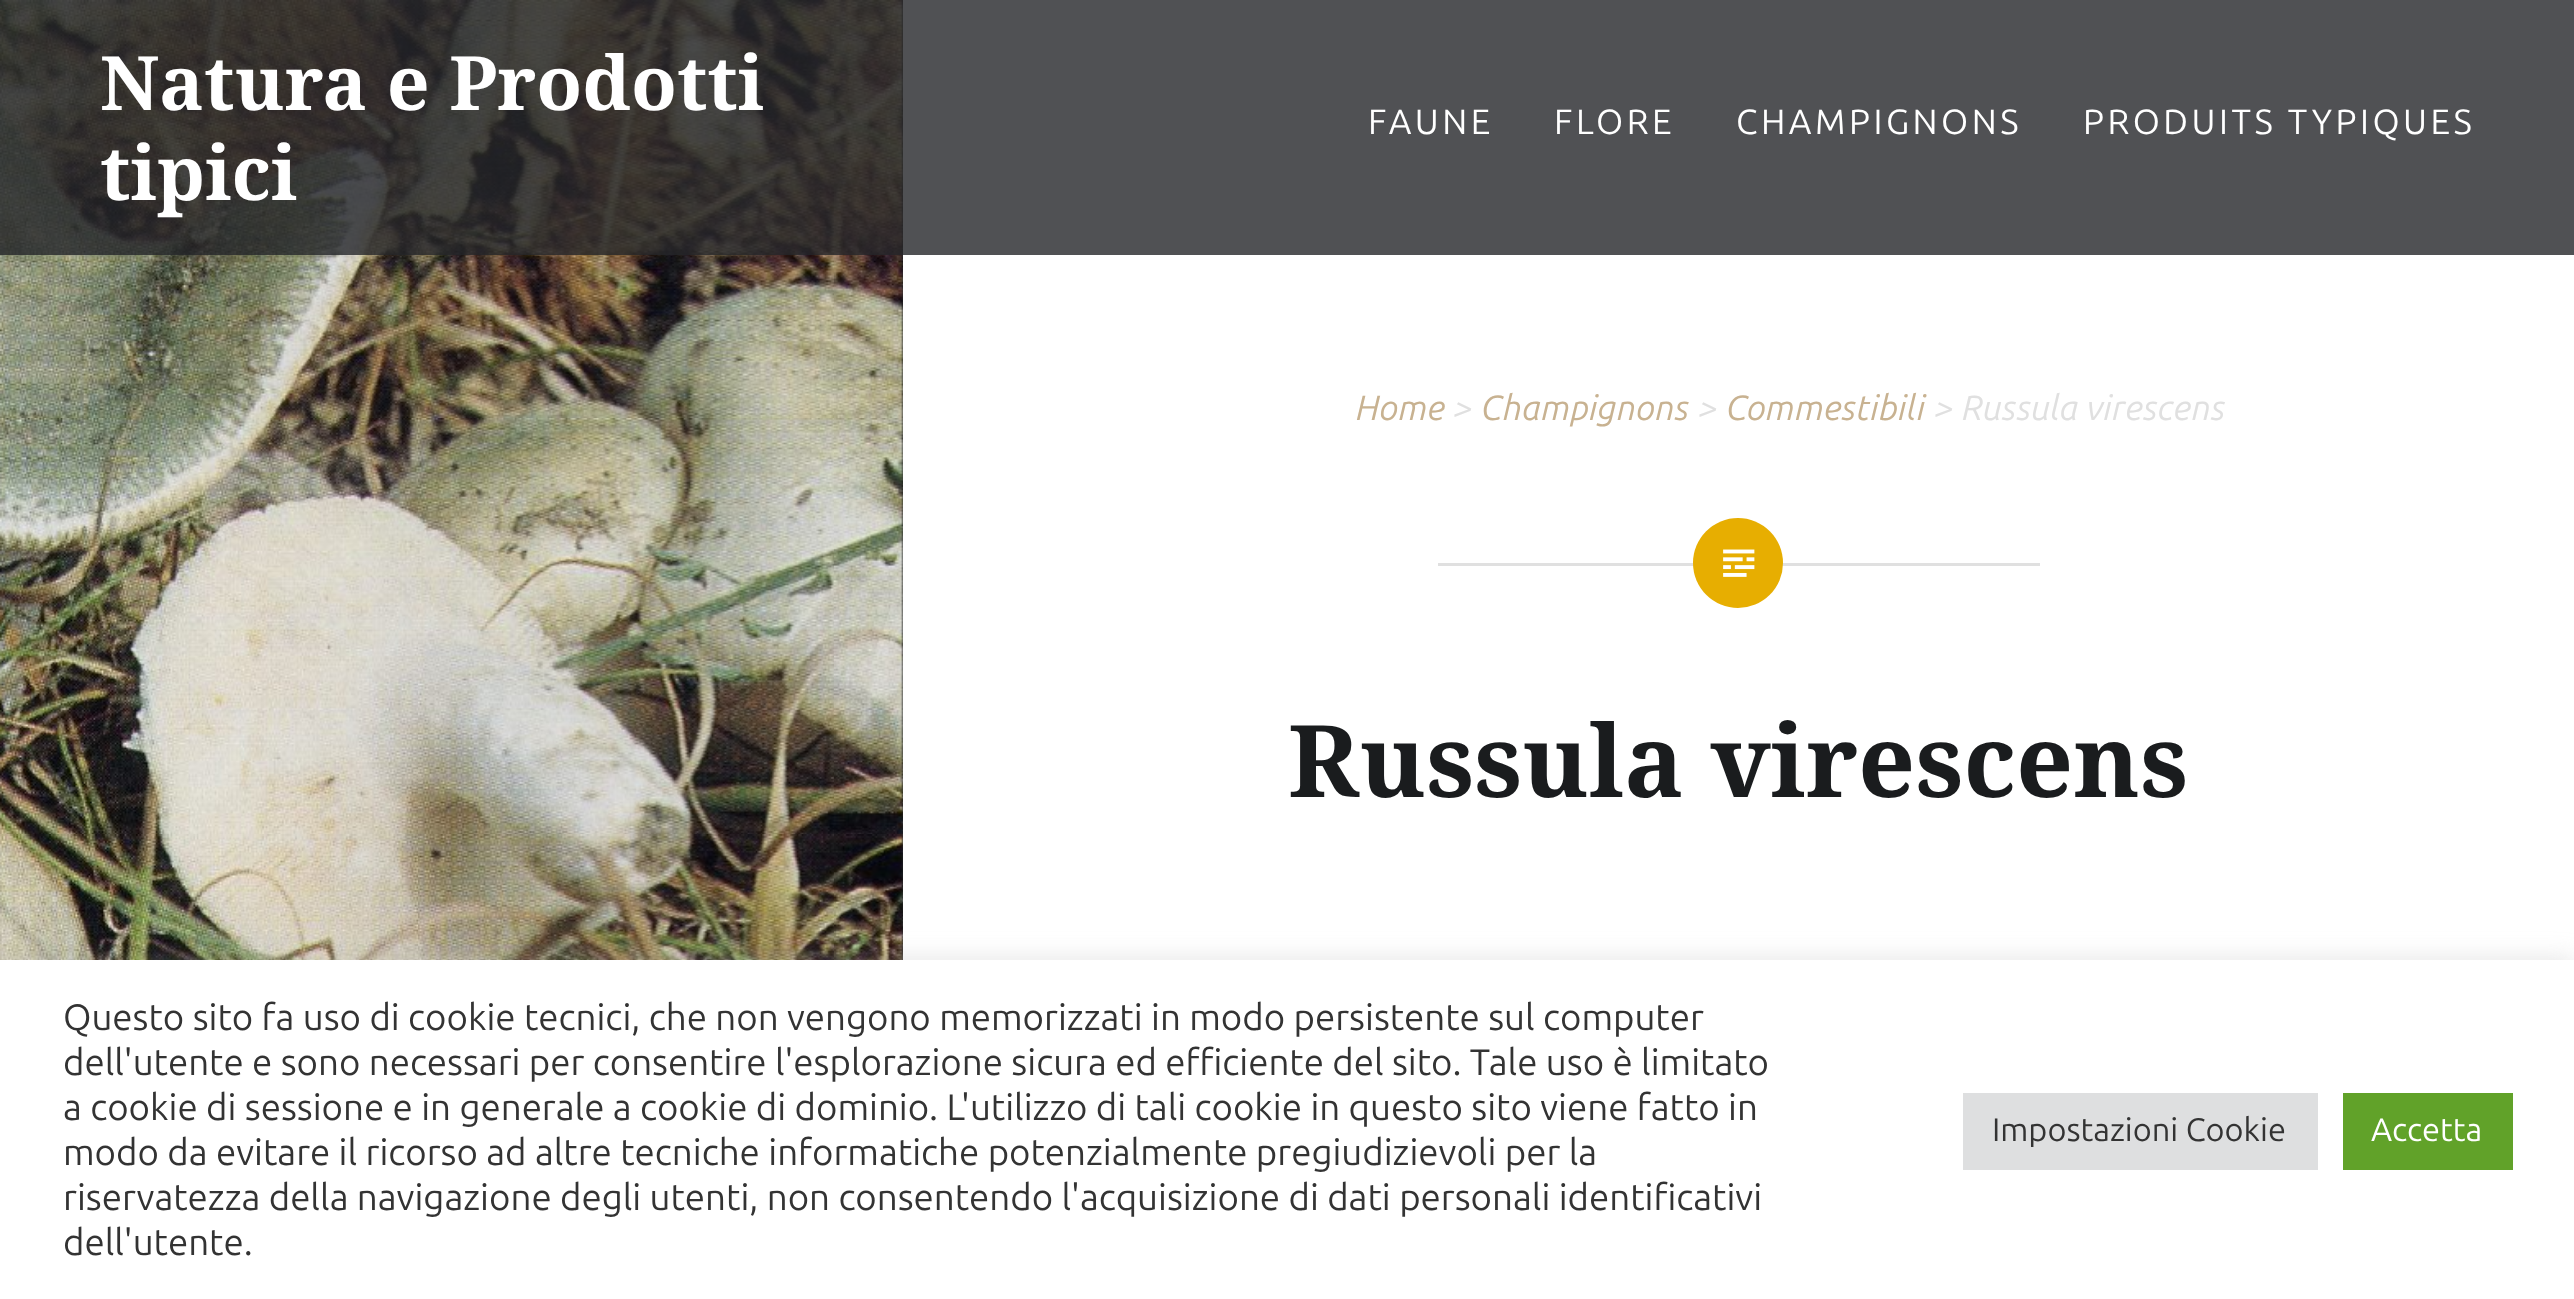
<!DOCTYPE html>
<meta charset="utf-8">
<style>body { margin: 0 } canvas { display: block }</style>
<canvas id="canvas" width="2574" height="1299"></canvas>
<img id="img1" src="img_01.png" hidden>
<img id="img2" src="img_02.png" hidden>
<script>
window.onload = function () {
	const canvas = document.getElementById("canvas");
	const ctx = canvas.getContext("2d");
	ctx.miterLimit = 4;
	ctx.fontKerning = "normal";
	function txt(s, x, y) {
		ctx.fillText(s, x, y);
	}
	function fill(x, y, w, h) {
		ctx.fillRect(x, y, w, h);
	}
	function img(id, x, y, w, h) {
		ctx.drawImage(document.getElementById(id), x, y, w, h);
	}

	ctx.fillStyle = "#242629";
	fill(0, 0, 2574, 1299);
	ctx.fillStyle = "#FFFFFF";
	fill(903, 0, 1671, 960);
	img("img1", 0, 0, 903, 960);
	ctx.fillStyle = "rgba(36, 38, 41, 0.8)";
	fill(0, 0, 2574, 255);
	ctx.fillStyle = "#E0E0E0";
	fill(1438, 563, 602, 3);
	ctx.fillStyle = "#E7AE01";
	ctx.beginPath();
	ctx.arc(1738, 563, 45, 0, Math.PI * 2);
	ctx.fill();
	img("img2", 1723, 549, 32, 28);
	ctx.fillStyle = "rgba(172, 171, 171, 0.3)";
	ctx.filter = "blur(12.5px)";
	ctx.beginPath();
	ctx.rect(0, 958, 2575, 340);
	ctx.fill();
	ctx.filter = "none";
	ctx.fillStyle = "#FFFFFF";
	fill(0, 960, 2574, 339);
	ctx.fillStyle = "#DEDFE0";
	fill(1963, 1093, 355, 77);
	ctx.fillStyle = "#61A229";
	fill(2343, 1093, 170, 77);
	ctx.font = "bold 75px Noto Serif";
	ctx.fillStyle = "#FFFFFF";
	txt("Natura e Prodotti", 100, 110);
	txt("tipici", 100, 200);
	ctx.letterSpacing = "3.5px";
	ctx.font = "35px Ubuntu";
	txt("FAUNE", 1368, 134);
	txt("FLORE", 1554, 134);
	txt("CHAMPIGNONS", 1736, 134);
	txt("PRODUITS TYPIQUES", 2083, 134);
	ctx.letterSpacing = "0px";
	ctx.font = "italic 35px Ubuntu";
	ctx.fillStyle = "#C8B291";
	txt("Home", 1356, 420);
	ctx.fillStyle = "#E0E0E0";
	txt(">", 1453, 420);
	ctx.fillStyle = "#C8B291";
	txt("Champignons", 1481, 420);
	ctx.fillStyle = "#E0E0E0";
	txt(">", 1698, 420);
	ctx.fillStyle = "#C8B291";
	txt("Commestibili", 1726, 420);
	ctx.fillStyle = "#E0E0E0";
	txt("> Russula virescens", 1934, 420);
	ctx.font = "bold 100px Noto Serif";
	ctx.fillStyle = "#1A1C1E";
	txt("Russula virescens", 1288, 797);
	ctx.font = "36.65px Ubuntu";
	ctx.fillStyle = "#333333";
	txt("Questo sito fa uso di cookie tecnici, che non vengono memorizzati in modo persistente sul computer", 63, 1030);
	txt("dell'utente e sono necessari per consentire l'esplorazione sicura ed efficiente del sito. Tale uso è limitato", 63, 1075);
	txt("a cookie di sessione e in generale a cookie di dominio. L'utilizzo di tali cookie in questo sito viene fatto in", 63, 1120);
	txt("modo da evitare il ricorso ad altre tecniche informatiche potenzialmente pregiudizievoli per la", 63, 1165);
	txt("riservatezza della navigazione degli utenti, non consentendo l'acquisizione di dati personali identificativi", 63, 1210);
	txt("dell'utente.", 63, 1255);
	ctx.font = "32.5px Ubuntu";
	txt("Impostazioni Cookie", 1992, 1141);
	ctx.fillStyle = "#FFFFFF";
	txt("Accetta", 2371, 1141);
};
</script>
